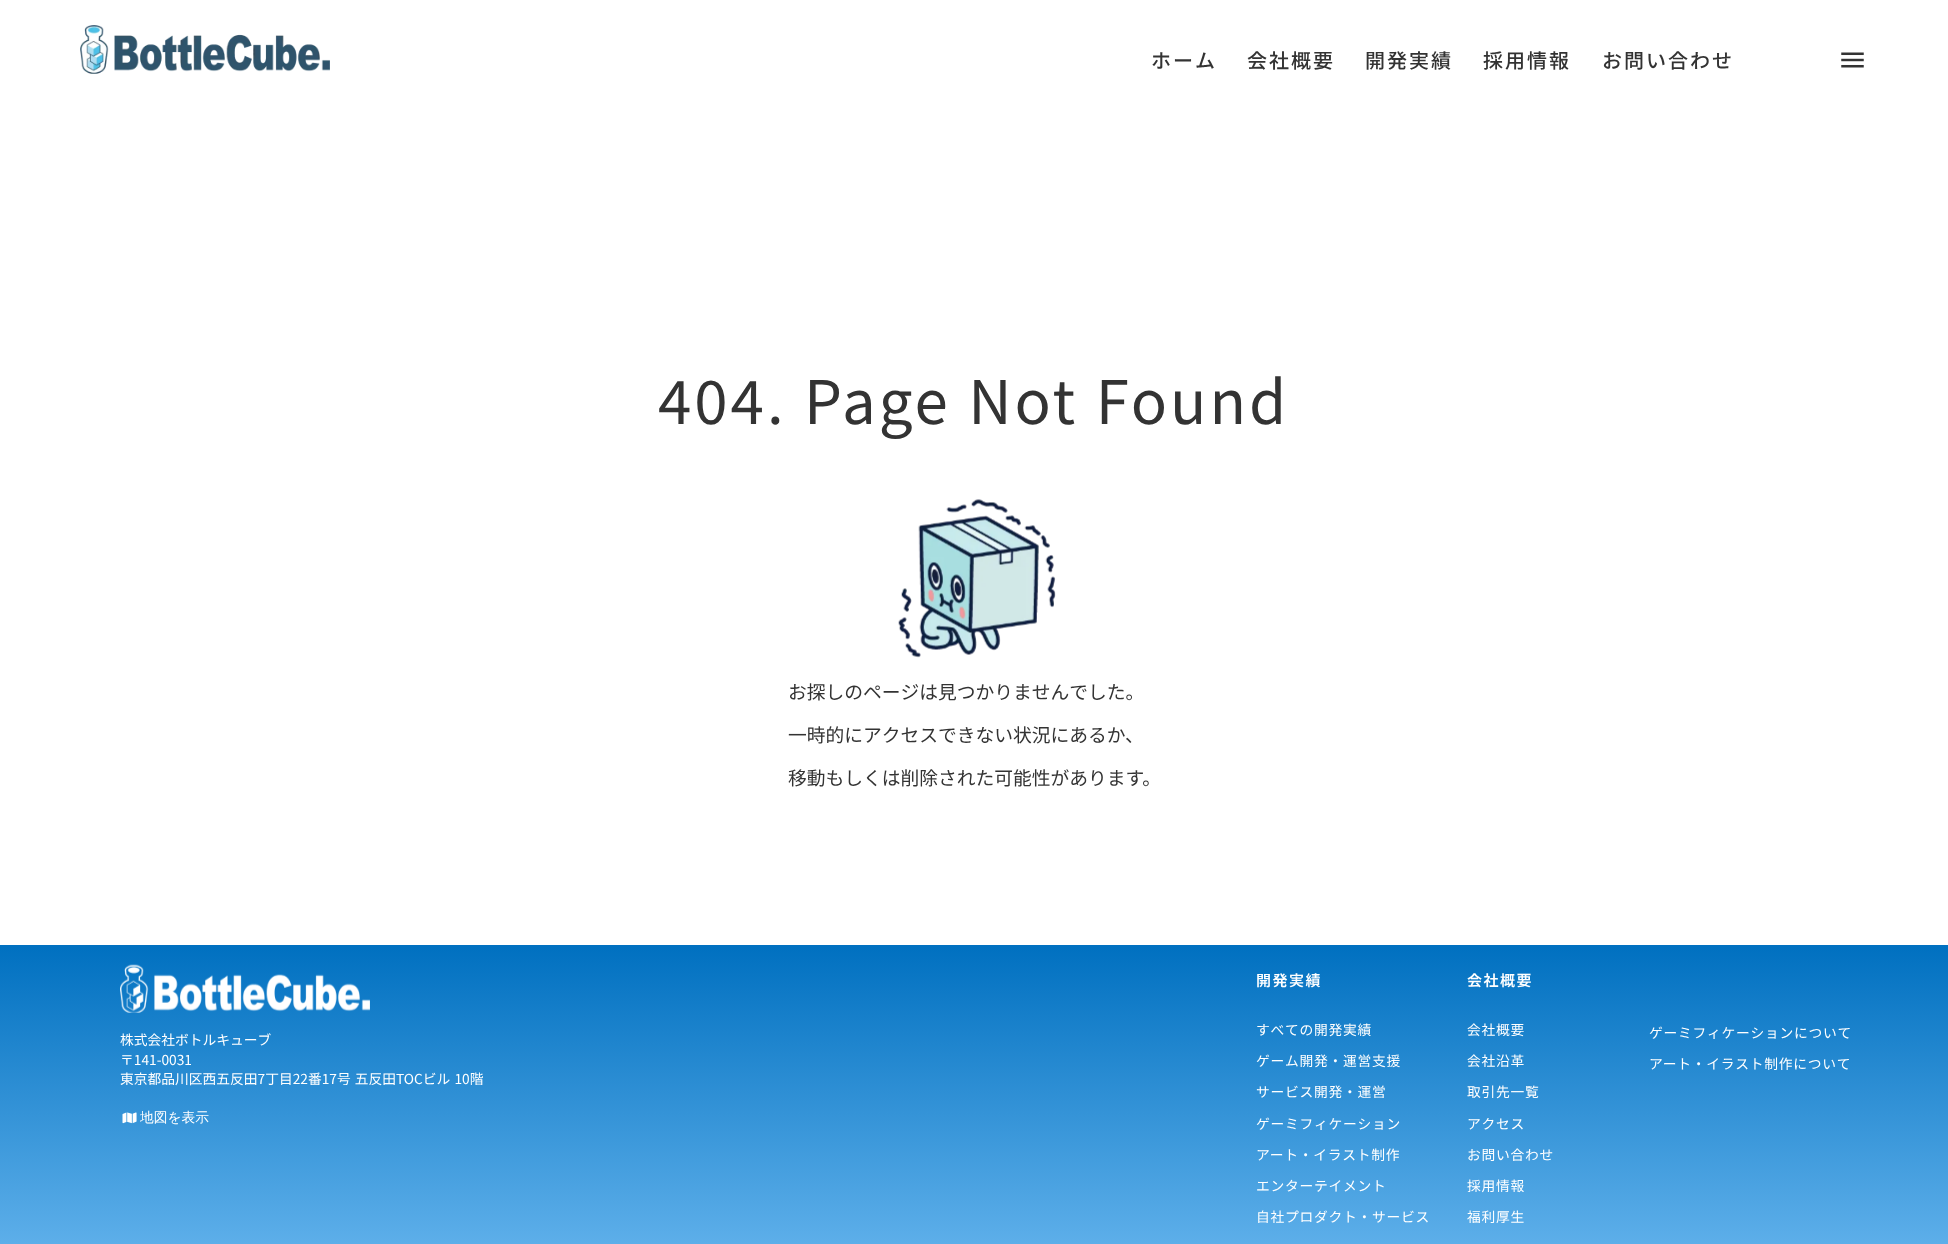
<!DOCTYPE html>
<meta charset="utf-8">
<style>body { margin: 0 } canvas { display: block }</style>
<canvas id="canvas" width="1948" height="1244"></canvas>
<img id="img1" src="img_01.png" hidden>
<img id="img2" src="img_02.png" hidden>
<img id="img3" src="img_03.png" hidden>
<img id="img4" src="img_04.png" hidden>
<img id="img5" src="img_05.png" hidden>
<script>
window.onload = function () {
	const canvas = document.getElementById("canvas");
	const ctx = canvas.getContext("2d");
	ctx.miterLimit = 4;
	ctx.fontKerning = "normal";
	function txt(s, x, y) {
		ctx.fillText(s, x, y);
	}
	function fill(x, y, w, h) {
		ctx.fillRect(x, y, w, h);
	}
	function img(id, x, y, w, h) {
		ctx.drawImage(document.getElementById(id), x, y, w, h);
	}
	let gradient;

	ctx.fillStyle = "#FFFFFF";
	fill(0, 0, 1948, 1244);
	img("img1", 80, 25, 250, 49);
	img("img2", 1841, 52, 23, 16);
	img("img3", 898, 499, 158, 159);
	gradient = ctx.createLinearGradient(974, 945, 974, 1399);
	gradient.addColorStop(0, "#0070C0");
	gradient.addColorStop(1, "#8DCFFF");
	ctx.fillStyle = gradient;
	fill(0, 945, 1948, 299);
	img("img4", 120, 964, 250, 49);
	img("img5", 122, 1112, 15, 12);
	ctx.letterSpacing = "2px";
	ctx.font = "500 20px Noto Sans JP";
	ctx.fillStyle = "#333333";
	txt("ホーム", 1151, 68);
	txt("会社概要", 1247, 68);
	txt("開発実績", 1365, 68);
	txt("採用情報", 1483, 68);
	txt("お問い合わせ", 1602, 68);
	ctx.letterSpacing = "3px";
	ctx.wordSpacing = "1px";
	ctx.font = "60px Noto Sans JP";
	txt("404. Page Not Found", 658, 424);
	ctx.letterSpacing = "0px";
	ctx.wordSpacing = "0px";
	ctx.font = "18.75px Noto Sans JP";
	txt("お探しのページは見つかりませんでした。", 788, 699);
	txt("一時的にアクセスできない状況にあるか、", 788, 742);
	txt("移動もしくは削除された可能性があります。", 788, 785);
	ctx.font = "13.75px Noto Sans JP";
	ctx.fillStyle = "#FFFFFF";
	txt("株式会社ボトルキューブ", 120, 1045);
	txt("〒141-0031", 120, 1065);
	ctx.wordSpacing = "1px";
	txt("東京都品川区西五反田7丁目22番17号 五反田TOCビル 10階", 120, 1084);
	ctx.wordSpacing = "0px";
	ctx.font = "500 13.75px WenQuanYi Zen Hei";
	txt("地図を表示", 140, 1122);
	ctx.letterSpacing = "1.5px";
	ctx.font = "600 15px Noto Sans JP";
	txt("開発実績", 1256, 986);
	ctx.letterSpacing = "0.75px";
	ctx.font = "13.75px Noto Sans JP";
	txt("すべての開発実績", 1256, 1035);
	txt("ゲーム開発・運営支援", 1256, 1066);
	txt("サービス開発・運営", 1256, 1097);
	txt("ゲーミフィケーション", 1256, 1129);
	txt("アート・イラスト制作", 1256, 1160);
	txt("エンターテイメント", 1256, 1191);
	txt("自社プロダクト・サービス", 1256, 1222);
	ctx.letterSpacing = "1.5px";
	ctx.font = "600 15px Noto Sans JP";
	txt("会社概要", 1467, 986);
	ctx.letterSpacing = "0.75px";
	ctx.font = "13.75px Noto Sans JP";
	txt("会社概要", 1467, 1035);
	txt("会社沿革", 1467, 1066);
	txt("取引先一覧", 1467, 1097);
	txt("アクセス", 1467, 1129);
	txt("お問い合わせ", 1467, 1160);
	txt("採用情報", 1467, 1191);
	txt("福利厚生", 1467, 1222);
	txt("ゲーミフィケーションについて", 1649, 1038);
	txt("アート・イラスト制作について", 1649, 1069);
};
</script>
